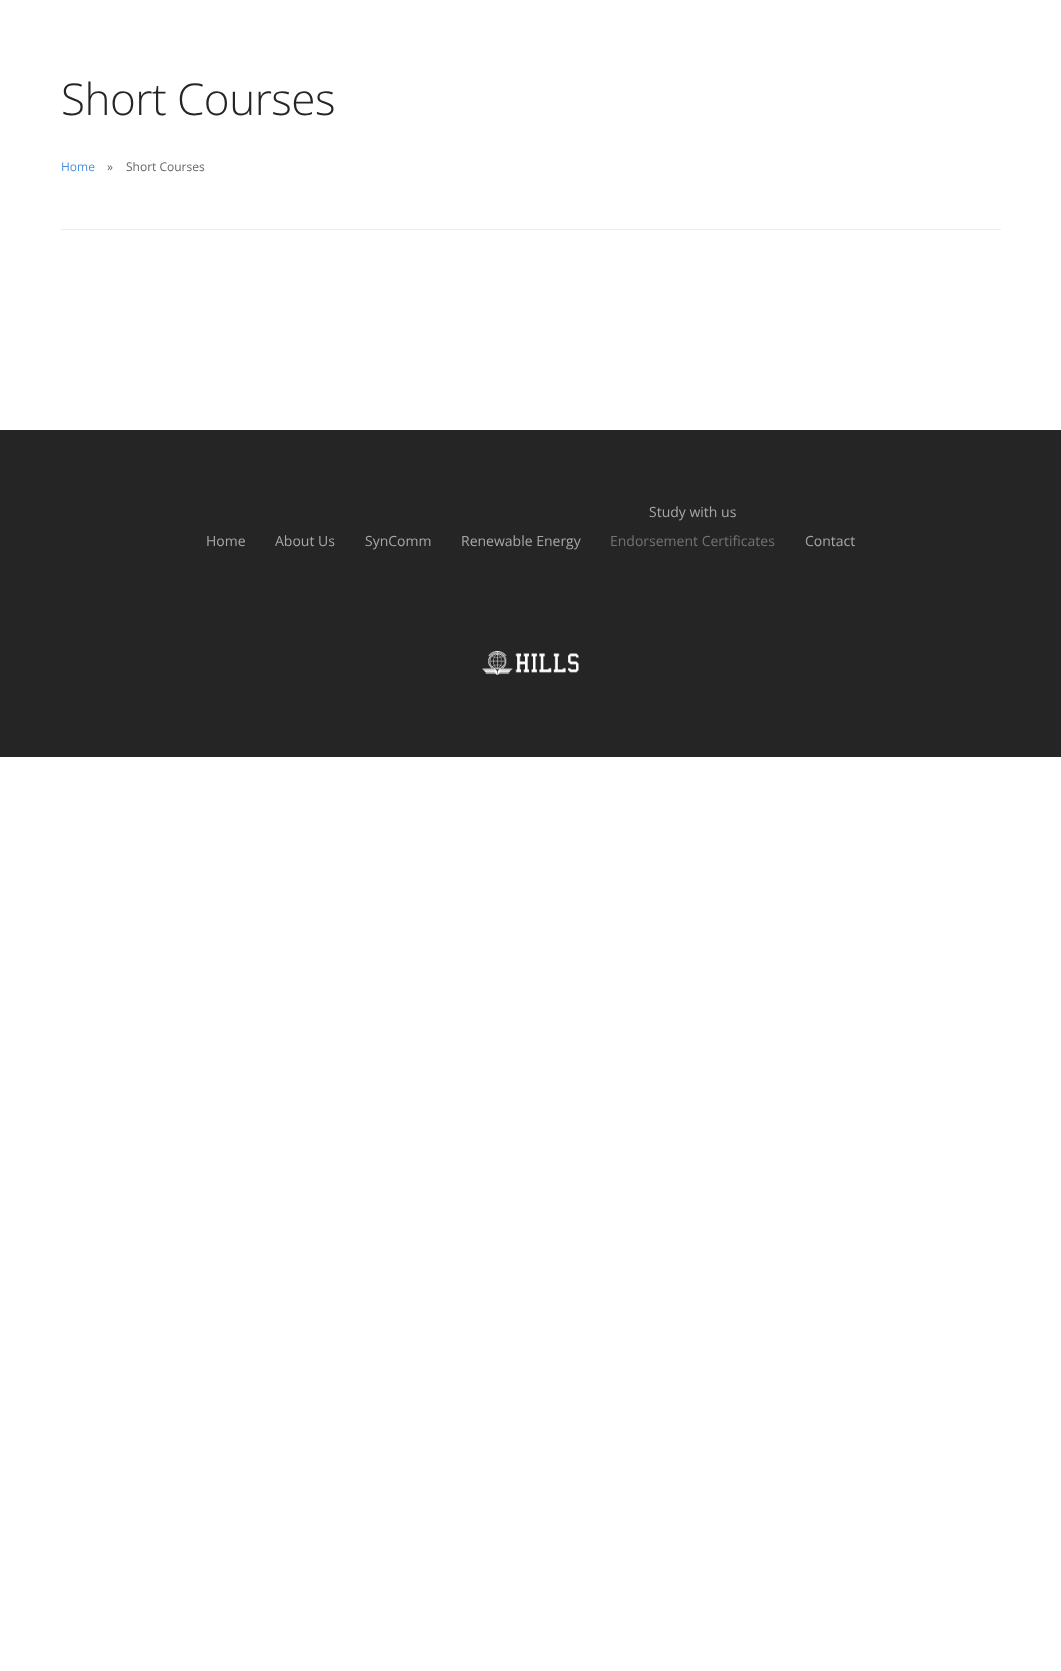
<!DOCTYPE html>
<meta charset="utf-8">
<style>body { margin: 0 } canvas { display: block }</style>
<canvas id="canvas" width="1061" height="1671"></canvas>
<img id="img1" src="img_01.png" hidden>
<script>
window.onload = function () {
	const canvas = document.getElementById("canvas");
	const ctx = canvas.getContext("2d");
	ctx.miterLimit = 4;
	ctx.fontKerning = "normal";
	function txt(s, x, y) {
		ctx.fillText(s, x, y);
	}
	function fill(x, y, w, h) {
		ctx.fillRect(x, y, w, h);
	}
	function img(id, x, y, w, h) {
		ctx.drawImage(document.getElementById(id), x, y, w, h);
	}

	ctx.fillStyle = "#FFFFFF";
	fill(0, 0, 1061, 1671);
	ctx.fillStyle = "#ECECEC";
	fill(61, 229, 940, 1);
	ctx.fillStyle = "#252525";
	fill(0, 430, 1061, 327);
	img("img1", 482, 651, 97, 24);
	ctx.letterSpacing = "-0.5px";
	ctx.font = "300 44px Open Sans";
	txt("Short Courses", 61, 115);
	ctx.letterSpacing = "0px";
	ctx.font = "12px Open Sans";
	ctx.fillStyle = "#4A90E2";
	txt("Home", 61, 171);
	ctx.fillStyle = "#666666";
	txt("»", 107, 171);
	txt("Short Courses", 126, 171);
	ctx.font = "14px Open Sans";
	ctx.fillStyle = "#A8A8A8";
	txt("Home", 206, 546);
	txt("About Us", 275, 546);
	txt("SynComm", 365, 546);
	txt("Renewable Energy", 461, 546);
	txt("Study with us", 649, 517);
	ctx.fillStyle = "#737373";
	txt("Endorsement Certificates", 610, 546);
	ctx.fillStyle = "#A8A8A8";
	txt("Contact", 805, 546);
};
</script>
